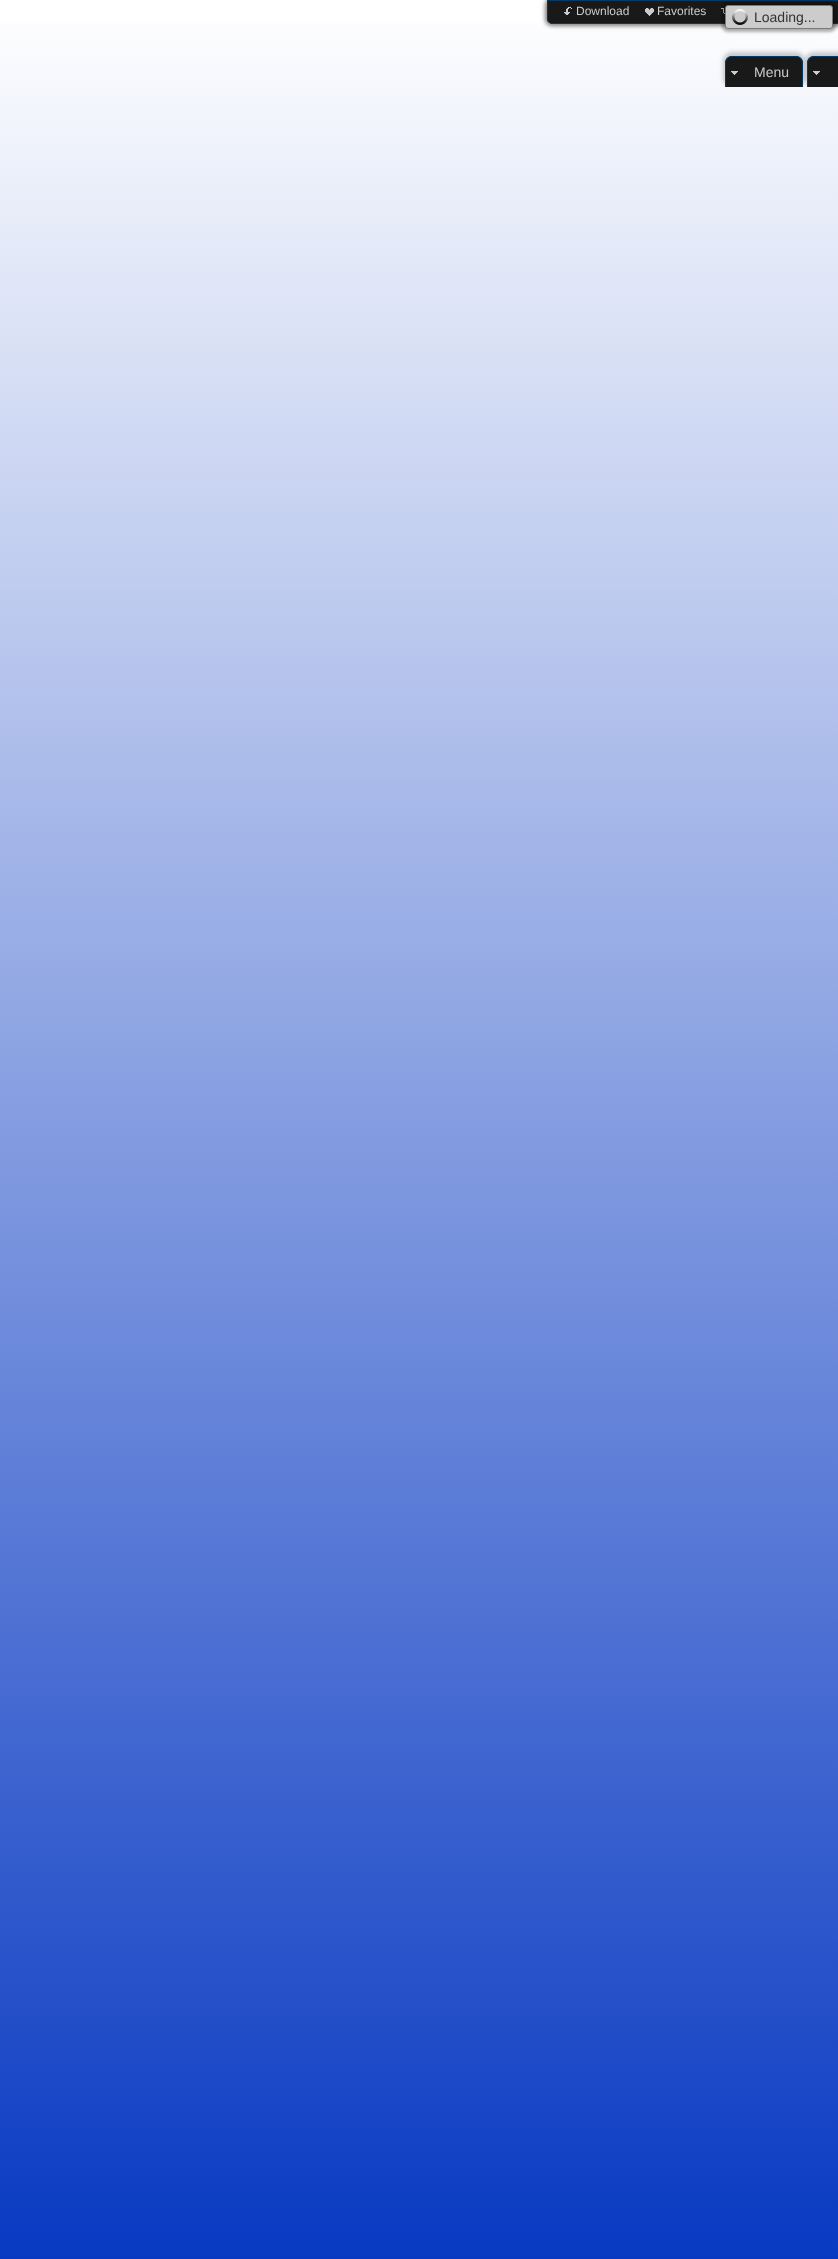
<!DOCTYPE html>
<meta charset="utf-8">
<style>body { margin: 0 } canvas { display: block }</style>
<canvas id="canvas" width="838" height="2259"></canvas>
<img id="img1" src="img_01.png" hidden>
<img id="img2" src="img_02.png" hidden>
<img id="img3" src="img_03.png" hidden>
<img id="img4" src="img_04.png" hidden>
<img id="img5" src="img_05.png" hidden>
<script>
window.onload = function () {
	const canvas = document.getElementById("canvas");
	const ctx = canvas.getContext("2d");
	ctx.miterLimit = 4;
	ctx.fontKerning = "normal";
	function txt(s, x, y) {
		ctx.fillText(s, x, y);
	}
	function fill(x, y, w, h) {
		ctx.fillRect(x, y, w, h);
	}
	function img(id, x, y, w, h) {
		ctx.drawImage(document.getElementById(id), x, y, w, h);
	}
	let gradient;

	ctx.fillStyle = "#FFFFFF";
	fill(0, 0, 838, 2259);
	gradient = ctx.createLinearGradient(419, 0, 419, 2259);
	gradient.addColorStop(0, "#FFFFFF");
	gradient.addColorStop(1, "#0839C2");
	ctx.fillStyle = gradient;
	fill(0, 23, 838, 2236);
	ctx.save();
	ctx.beginPath();
	ctx.moveTo(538, 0);
	ctx.lineTo(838, 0);
	ctx.lineTo(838, 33);
	ctx.lineTo(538, 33);
	ctx.closePath();
	ctx.moveTo(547, 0);
	ctx.lineTo(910, 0);
	ctx.lineTo(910, 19);
	ctx.bezierCurveTo(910, 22, 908, 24, 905, 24);
	ctx.lineTo(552, 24);
	ctx.bezierCurveTo(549, 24, 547, 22, 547, 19);
	ctx.closePath();
	ctx.clip("evenodd");
	ctx.fillStyle = "rgba(0, 0, 0, 0.5)";
	ctx.filter = "blur(2px)";
	ctx.beginPath();
	ctx.roundRect(545, -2, 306, 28, 7);
	ctx.fill();
	ctx.filter = "none";
	ctx.restore();
	ctx.fillStyle = "rgba(0, 0, 0, 0.9)";
	ctx.beginPath();
	ctx.roundRect(547, 0, 291, 24, [0, 0, 0, 5]);
	ctx.fill();
	ctx.beginPath();
	ctx.moveTo(547.5, 0.5);
	ctx.lineTo(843.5, 0.5);
	ctx.lineTo(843.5, 19);
	ctx.bezierCurveTo(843.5, 21.5, 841.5, 23.5, 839, 23.5);
	ctx.lineTo(552, 23.5);
	ctx.bezierCurveTo(549.5, 23.5, 547.5, 21.5, 547.5, 19);
	ctx.closePath();
	ctx.strokeStyle = "#043965";
	ctx.stroke();
	img("img1", 564, 7, 8, 8);
	img("img2", 645, 8, 9, 8);
	img("img3", 721, 8, 4, 6);
	ctx.save();
	ctx.beginPath();
	ctx.rect(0, 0, 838, 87);
	ctx.clip();
	ctx.beginPath();
	ctx.moveTo(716, 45);
	ctx.lineTo(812, 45);
	ctx.lineTo(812, 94);
	ctx.lineTo(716, 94);
	ctx.closePath();
	ctx.moveTo(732, 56);
	ctx.lineTo(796, 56);
	ctx.bezierCurveTo(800, 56, 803, 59, 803, 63);
	ctx.lineTo(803, 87);
	ctx.lineTo(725, 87);
	ctx.lineTo(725, 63);
	ctx.bezierCurveTo(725, 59, 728, 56, 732, 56);
	ctx.closePath();
	ctx.clip("evenodd");
	ctx.fillStyle = "rgba(0, 0, 0, 0.2)";
	ctx.filter = "blur(2px)";
	ctx.beginPath();
	ctx.roundRect(723, 52, 82, 35, 9);
	ctx.fill();
	ctx.filter = "none";
	ctx.restore();
	ctx.beginPath();
	ctx.roundRect(725, 56, 78, 31, [7, 7, 0, 0]);
	ctx.fill();
	ctx.fillStyle = "#043965";
	ctx.beginPath();
	ctx.moveTo(732, 56);
	ctx.lineTo(796, 56);
	ctx.bezierCurveTo(800, 56, 803, 59, 803, 63);
	ctx.lineTo(803, 87);
	ctx.lineTo(725, 87);
	ctx.lineTo(725, 63);
	ctx.bezierCurveTo(725, 59, 728, 56, 732, 56);
	ctx.closePath();
	ctx.moveTo(732, 57);
	ctx.lineTo(796, 57);
	ctx.bezierCurveTo(799, 57, 802, 60, 802, 63);
	ctx.lineTo(802, 87);
	ctx.lineTo(726, 87);
	ctx.lineTo(726, 63);
	ctx.bezierCurveTo(726, 60, 729, 57, 732, 57);
	ctx.closePath();
	ctx.fill("evenodd");
	img("img4", 731, 71, 7, 4);
	ctx.save();
	ctx.beginPath();
	ctx.rect(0, 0, 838, 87);
	ctx.clip();
	ctx.beginPath();
	ctx.moveTo(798, 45);
	ctx.lineTo(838, 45);
	ctx.lineTo(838, 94);
	ctx.lineTo(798, 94);
	ctx.closePath();
	ctx.moveTo(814, 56);
	ctx.lineTo(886, 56);
	ctx.bezierCurveTo(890, 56, 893, 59, 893, 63);
	ctx.lineTo(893, 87);
	ctx.lineTo(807, 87);
	ctx.lineTo(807, 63);
	ctx.bezierCurveTo(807, 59, 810, 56, 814, 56);
	ctx.closePath();
	ctx.clip("evenodd");
	ctx.fillStyle = "rgba(0, 0, 0, 0.2)";
	ctx.filter = "blur(2px)";
	ctx.beginPath();
	ctx.roundRect(805, 52, 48, 35, 9);
	ctx.fill();
	ctx.filter = "none";
	ctx.restore();
	ctx.fillStyle = "rgba(0, 0, 0, 0.9)";
	ctx.beginPath();
	ctx.roundRect(807, 56, 31, 31, [7, 0, 0, 0]);
	ctx.fill();
	ctx.fillStyle = "#043965";
	ctx.beginPath();
	ctx.moveTo(814, 56);
	ctx.lineTo(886, 56);
	ctx.bezierCurveTo(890, 56, 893, 59, 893, 63);
	ctx.lineTo(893, 87);
	ctx.lineTo(807, 87);
	ctx.lineTo(807, 63);
	ctx.bezierCurveTo(807, 59, 810, 56, 814, 56);
	ctx.closePath();
	ctx.moveTo(814, 57);
	ctx.lineTo(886, 57);
	ctx.bezierCurveTo(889, 57, 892, 60, 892, 63);
	ctx.lineTo(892, 87);
	ctx.lineTo(808, 87);
	ctx.lineTo(808, 63);
	ctx.bezierCurveTo(808, 60, 811, 57, 814, 57);
	ctx.closePath();
	ctx.fill("evenodd");
	img("img4", 813, 71, 7, 4);
	ctx.fillStyle = "rgba(0, 0, 0, 0.3)";
	ctx.filter = "blur(1.5px)";
	ctx.beginPath();
	ctx.roundRect(722, 2, 114, 30, 6);
	ctx.fill();
	ctx.filter = "none";
	ctx.fillStyle = "#CCCCCC";
	ctx.beginPath();
	ctx.roundRect(725.5, 5.5, 107, 23, 2.5);
	ctx.fill();
	ctx.strokeStyle = "#7A7A7A";
	ctx.stroke();
	img("img5", 732, 9, 16, 16);
	ctx.font = "12px Liberation Sans";
	ctx.fillStyle = "#CACACA";
	txt("Download", 576, 15);
	txt("Favorites", 657, 15);
	ctx.font = "14px Liberation Sans";
	txt("Menu", 754, 77);
	ctx.fillStyle = "#333333";
	txt("Loading...", 754, 22);
};
</script>
